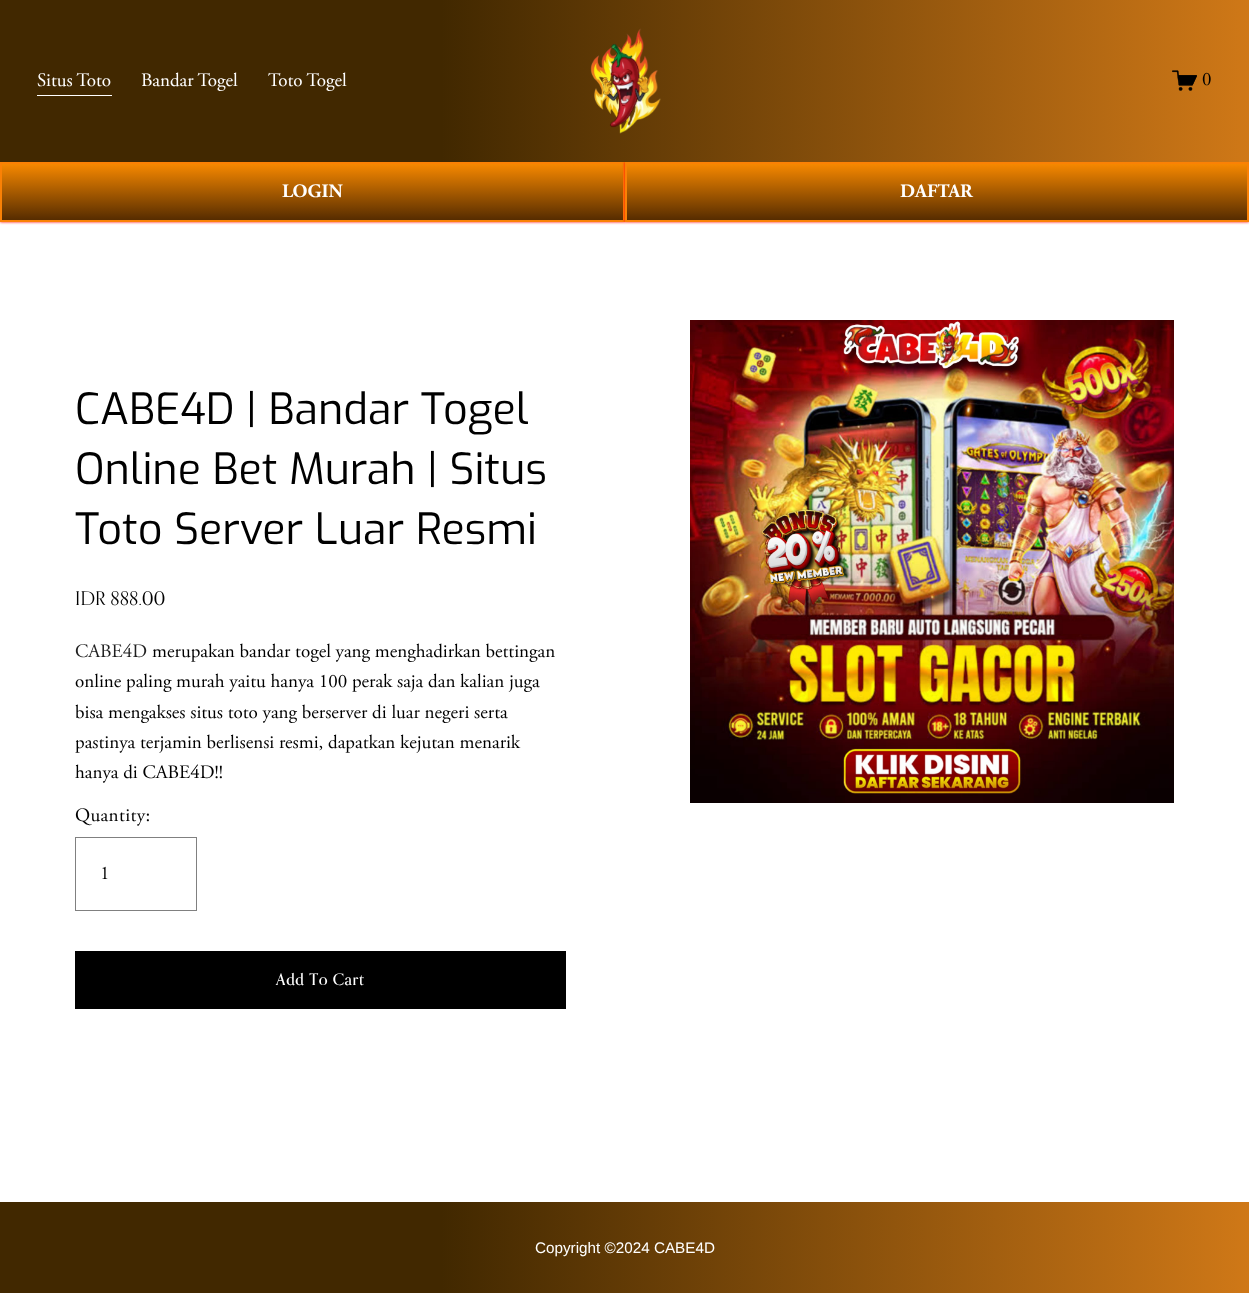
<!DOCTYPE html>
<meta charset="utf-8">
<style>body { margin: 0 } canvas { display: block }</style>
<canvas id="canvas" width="1249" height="1293"></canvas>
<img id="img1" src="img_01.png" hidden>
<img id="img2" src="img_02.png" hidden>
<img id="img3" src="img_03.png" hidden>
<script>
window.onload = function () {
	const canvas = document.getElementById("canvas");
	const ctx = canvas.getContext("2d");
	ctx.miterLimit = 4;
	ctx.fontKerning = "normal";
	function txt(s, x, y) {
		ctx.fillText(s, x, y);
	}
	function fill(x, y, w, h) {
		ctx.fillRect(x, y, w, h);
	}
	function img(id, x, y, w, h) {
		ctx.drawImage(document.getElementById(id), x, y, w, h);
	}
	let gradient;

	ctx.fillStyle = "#FFFFFF";
	fill(0, 0, 1249, 1293);
	ctx.fillStyle = "#FF0000";
	ctx.filter = "blur(1.5px)";
	ctx.beginPath();
	ctx.rect(0, 162, 625, 60);
	ctx.fill();
	ctx.filter = "none";
	gradient = ctx.createLinearGradient(313, 164, 313, 220);
	gradient.addColorStop(0, "#F68800");
	gradient.addColorStop(1, "#562C00");
	ctx.fillStyle = gradient;
	fill(2, 164, 621, 56);
	ctx.strokeStyle = "#FA8105";
	ctx.lineWidth = 2;
	ctx.strokeRect(1, 163, 623, 58);
	ctx.fillStyle = "#FF0000";
	ctx.filter = "blur(1.5px)";
	ctx.beginPath();
	ctx.rect(625, 162, 624, 60);
	ctx.fill();
	ctx.filter = "none";
	gradient = ctx.createLinearGradient(-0.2, 82, 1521, 79);
	gradient.addColorStop(0.29, "#412800");
	gradient.addColorStop(1, "#FF931F");
	ctx.fillStyle = gradient;
	fill(0, 0, 1249, 162);
	ctx.fillStyle = "#FFFFFF";
	fill(37, 95, 75, 1);
	img("img1", 590, 28, 71, 106);
	img("img2", 1172, 70, 25, 21);
	gradient = ctx.createLinearGradient(937, 164, 937, 220);
	gradient.addColorStop(0, "#F68800");
	gradient.addColorStop(1, "#562C00");
	ctx.fillStyle = gradient;
	fill(627, 164, 620, 56);
	ctx.strokeRect(626, 163, 622, 58);
	ctx.strokeStyle = "#808080";
	ctx.lineWidth = 1;
	ctx.strokeRect(75.5, 837.5, 121, 73);
	ctx.fillStyle = "#000000";
	fill(75, 951, 491, 58);
	img("img3", 690, 320, 484, 483);
	gradient = ctx.createLinearGradient(-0.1, 1249, 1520, 1245);
	gradient.addColorStop(0.29, "#412800");
	gradient.addColorStop(1, "#FF931F");
	ctx.fillStyle = gradient;
	fill(0, 1202, 1249, 91);
	ctx.font = "19px Adobe Garamond";
	ctx.fillStyle = "#FFFFFF";
	txt("Situs Toto", 37, 86);
	txt("Bandar Togel", 141, 86);
	txt("Toto Togel", 268, 86);
	ctx.fillStyle = "#000000";
	txt("0", 1202, 85);
	ctx.font = "bold 19px Adobe Garamond";
	ctx.fillStyle = "#FFFFFF";
	txt("LOGIN", 282, 197);
	txt("DAFTAR", 900, 197);
	ctx.font = "43px Exo";
	ctx.fillStyle = "#000000";
	txt("CABE4D | Bandar Togel", 75, 424);
	txt("Online Bet Murah | Situs", 75, 484);
	txt("Toto Server Luar Resmi", 75, 544);
	ctx.font = "19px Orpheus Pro";
	txt("IDR 888.00", 75, 605);
	ctx.font = "19px Adobe Garamond";
	ctx.fillStyle = "#1F1F1F";
	txt("CABE4D", 75, 657);
	ctx.fillStyle = "#000000";
	txt("merupakan bandar togel yang menghadirkan bettingan", 152, 657);
	txt("online paling murah yaitu hanya 100 perak saja dan kalian juga", 75, 687);
	txt("bisa mengakses situs toto yang berserver di luar negeri serta", 75, 718);
	txt("pastinya terjamin berlisensi resmi, dapatkan kejutan menarik", 75, 748);
	txt("hanya di CABE4D!!", 75, 778);
	ctx.letterSpacing = "0.4px";
	txt("Quantity:", 75, 821);
	ctx.letterSpacing = "0px";
	txt("1", 100, 879);
	ctx.letterSpacing = "0.6px";
	ctx.font = "500 16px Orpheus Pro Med";
	ctx.fillStyle = "#FFFFFF";
	txt("Add To Cart", 276, 985);
	ctx.letterSpacing = "0px";
	ctx.font = "15.25px Liberation Sans";
	txt("Copyright ©2024 CABE4D", 535, 1253);
};
</script>
